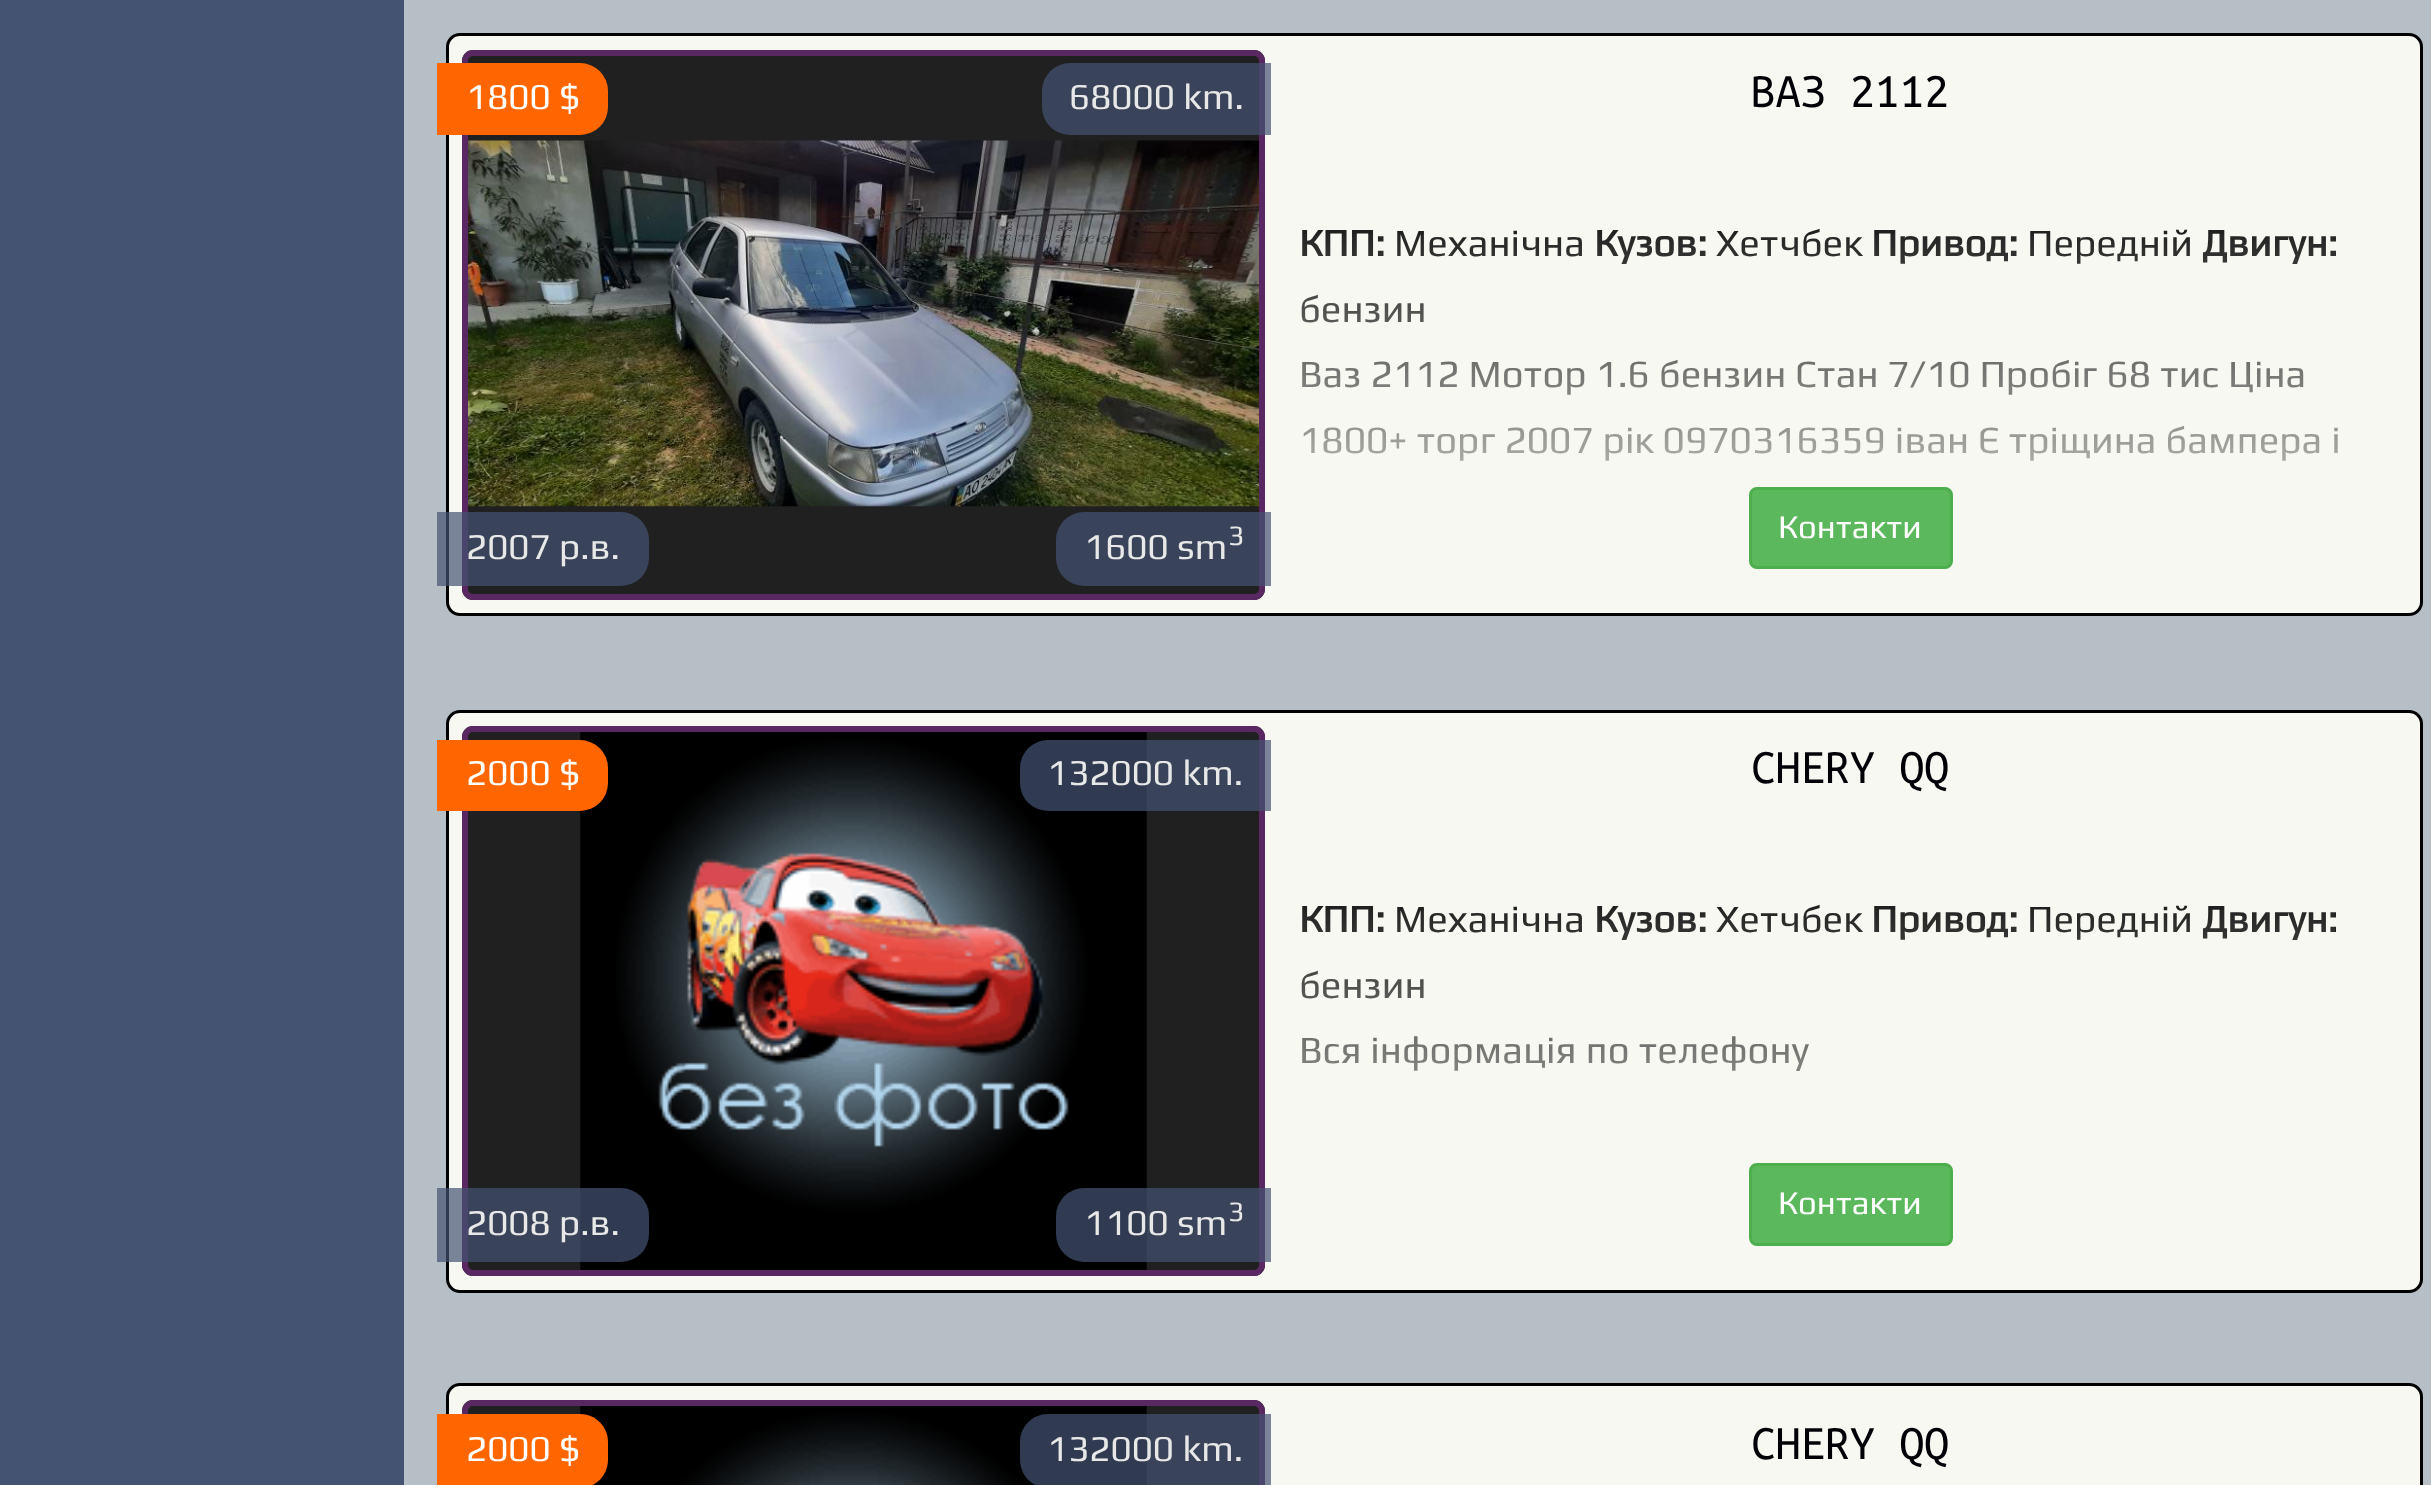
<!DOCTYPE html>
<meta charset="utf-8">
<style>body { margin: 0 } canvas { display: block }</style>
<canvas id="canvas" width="2431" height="1485"></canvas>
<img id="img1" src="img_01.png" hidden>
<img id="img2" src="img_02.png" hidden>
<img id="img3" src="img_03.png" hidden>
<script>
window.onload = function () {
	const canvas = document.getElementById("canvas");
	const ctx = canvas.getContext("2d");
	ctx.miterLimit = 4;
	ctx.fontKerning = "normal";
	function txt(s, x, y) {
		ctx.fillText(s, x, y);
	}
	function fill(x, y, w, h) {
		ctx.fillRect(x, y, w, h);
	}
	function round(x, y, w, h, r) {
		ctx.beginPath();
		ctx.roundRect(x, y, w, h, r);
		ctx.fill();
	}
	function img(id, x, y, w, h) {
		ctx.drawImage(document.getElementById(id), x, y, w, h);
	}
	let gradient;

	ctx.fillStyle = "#B6BFC6";
	fill(0, 0, 2431, 1485);
	ctx.fillStyle = "#455372";
	fill(0, 0, 404, 1485);
	ctx.fillStyle = "#F7F8F1";
	ctx.beginPath();
	ctx.roundRect(447.5, 34.5, 1974, 580, 12.5);
	ctx.fill();
	ctx.strokeStyle = "#000000";
	ctx.lineWidth = 3;
	ctx.stroke();
	ctx.fillStyle = "#202020";
	round(462, 50, 803, 550, 11);
	img("img1", 468, 140, 791, 367);
	ctx.beginPath();
	ctx.roundRect(465, 53, 797, 544, 8);
	ctx.strokeStyle = "#592762";
	ctx.lineWidth = 6;
	ctx.stroke();
	ctx.fillStyle = "#FF6600";
	ctx.beginPath();
	ctx.roundRect(437, 63, 171, 72, [0, 28, 28, 0]);
	ctx.fill();
	ctx.fillStyle = "rgba(69, 83, 114, 0.7)";
	ctx.beginPath();
	ctx.roundRect(1042, 63, 229, 72, [28, 0, 0, 28]);
	ctx.fill();
	ctx.beginPath();
	ctx.roundRect(437, 512, 212, 74, [0, 28, 28, 0]);
	ctx.fill();
	ctx.beginPath();
	ctx.roundRect(1056, 512, 215, 74, [28, 0, 0, 28]);
	ctx.fill();
	ctx.fillStyle = "#5CB85C";
	ctx.beginPath();
	ctx.roundRect(1750.5, 488.5, 201, 79, 6.5);
	ctx.fill();
	ctx.strokeStyle = "#4CAE4C";
	ctx.lineWidth = 3;
	ctx.stroke();
	ctx.fillStyle = "#F7F8F1";
	ctx.beginPath();
	ctx.roundRect(447.5, 711.5, 1974, 580, 12.5);
	ctx.fill();
	ctx.strokeStyle = "#000000";
	ctx.stroke();
	ctx.fillStyle = "#202020";
	round(462, 726, 803, 550, 11);
	img("img2", 580, 732, 567, 538);
	ctx.beginPath();
	ctx.roundRect(465, 729, 797, 544, 8);
	ctx.strokeStyle = "#592762";
	ctx.lineWidth = 6;
	ctx.stroke();
	ctx.fillStyle = "#FF6600";
	ctx.beginPath();
	ctx.roundRect(437, 740, 171, 71, [0, 28, 28, 0]);
	ctx.fill();
	ctx.fillStyle = "rgba(69, 83, 114, 0.7)";
	ctx.beginPath();
	ctx.roundRect(1020, 740, 251, 71, [28, 0, 0, 28]);
	ctx.fill();
	ctx.beginPath();
	ctx.roundRect(437, 1188, 212, 74, [0, 28, 28, 0]);
	ctx.fill();
	ctx.beginPath();
	ctx.roundRect(1056, 1188, 215, 74, [28, 0, 0, 28]);
	ctx.fill();
	ctx.fillStyle = "#5CB85C";
	ctx.beginPath();
	ctx.roundRect(1750.5, 1164.5, 201, 80, 6.5);
	ctx.fill();
	ctx.strokeStyle = "#4CAE4C";
	ctx.lineWidth = 3;
	ctx.stroke();
	ctx.fillStyle = "#F7F8F1";
	ctx.beginPath();
	ctx.roundRect(447.5, 1384.5, 1974, 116, 12.5);
	ctx.fill();
	ctx.strokeStyle = "#000000";
	ctx.stroke();
	ctx.fillStyle = "#202020";
	round(462, 1400, 803, 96, 11);
	img("img3", 580, 1406, 567, 79);
	ctx.beginPath();
	ctx.roundRect(465, 1403, 797, 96, 8);
	ctx.strokeStyle = "#592762";
	ctx.lineWidth = 6;
	ctx.stroke();
	ctx.fillStyle = "#FF6600";
	ctx.beginPath();
	ctx.moveTo(437, 1414);
	ctx.lineTo(580, 1414);
	ctx.bezierCurveTo(595.5, 1414, 608, 1426.5, 608, 1442);
	ctx.lineTo(608, 1460);
	ctx.bezierCurveTo(608, 1475.5, 595.5, 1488, 580, 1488);
	ctx.lineTo(437, 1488);
	ctx.closePath();
	ctx.fill();
	ctx.fillStyle = "rgba(69, 83, 114, 0.7)";
	ctx.beginPath();
	ctx.moveTo(1048, 1414);
	ctx.lineTo(1271, 1414);
	ctx.lineTo(1271, 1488);
	ctx.lineTo(1048, 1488);
	ctx.bezierCurveTo(1032.5, 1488, 1020, 1475.5, 1020, 1460);
	ctx.lineTo(1020, 1442);
	ctx.bezierCurveTo(1020, 1426.5, 1032.5, 1414, 1048, 1414);
	ctx.closePath();
	ctx.fill();
	ctx.font = "36.5px Play";
	ctx.fillStyle = "#FFFFFF";
	txt("1800 $", 466, 109);
	ctx.fillStyle = "#E8E8E8";
	txt("68000 km.", 1069, 109);
	txt("2007 р.в.", 466, 559);
	txt("1600 sm", 1084, 559);
	ctx.font = "28px Play";
	txt("3", 1228, 545);
	ctx.font = "49.5px Ubuntu Mono";
	ctx.fillStyle = "#010006";
	txt("ВАЗ 2112", 1751, 107);
	ctx.font = "bold 38.5px Play";
	ctx.fillStyle = "#202020";
	txt("КПП:", 1299, 256);
	ctx.font = "38.5px Play";
	txt("Механічна", 1394, 256);
	ctx.font = "bold 38.5px Play";
	txt("Кузов:", 1594, 256);
	ctx.font = "38.5px Play";
	txt("Хетчбек", 1716, 256);
	ctx.font = "bold 38.5px Play";
	txt("Привод:", 1871, 256);
	ctx.font = "38.5px Play";
	txt("Передній", 2027, 256);
	ctx.font = "bold 38.5px Play";
	txt("Двигун:", 2202, 256);
	ctx.font = "38.5px Play";
	txt("бензин", 1299, 322);
	txt("Ваз 2112 Мотор 1.6 бензин Стан 7/10 Пробіг 68 тис Ціна", 1299, 387);
	txt("1800+ торг 2007 рік 0970316359 іван Є тріщина бампера і", 1299, 453);
	gradient = ctx.createLinearGradient(1849, 597, 1849, 226);
	gradient.addColorStop(0, "#F7F8F1");
	gradient.addColorStop(1, "rgba(247, 248, 241, 0)");
	ctx.fillStyle = gradient;
	fill(1301, 234, 1037, 227);
	ctx.font = "33px Play";
	ctx.fillStyle = "#FFFFFF";
	txt("Контакти", 1778, 538);
	ctx.font = "36.5px Play";
	txt("2000 $", 466, 785);
	ctx.fillStyle = "#E8E8E8";
	txt("132000 km.", 1047, 785);
	txt("2008 р.в.", 466, 1235);
	txt("1100 sm", 1084, 1235);
	ctx.font = "28px Play";
	txt("3", 1228, 1221);
	ctx.font = "49.5px Ubuntu Mono";
	ctx.fillStyle = "#010006";
	txt("CHERY QQ", 1751, 783);
	ctx.font = "bold 38.5px Play";
	ctx.fillStyle = "#202020";
	txt("КПП:", 1299, 932);
	ctx.font = "38.5px Play";
	txt("Механічна", 1394, 932);
	ctx.font = "bold 38.5px Play";
	txt("Кузов:", 1594, 932);
	ctx.font = "38.5px Play";
	txt("Хетчбек", 1716, 932);
	ctx.font = "bold 38.5px Play";
	txt("Привод:", 1871, 932);
	ctx.font = "38.5px Play";
	txt("Передній", 2027, 932);
	ctx.font = "bold 38.5px Play";
	txt("Двигун:", 2202, 932);
	ctx.font = "38.5px Play";
	txt("бензин", 1299, 998);
	txt("Вся інформація по телефону", 1299, 1063);
	gradient = ctx.createLinearGradient(1849, 1273, 1849, 902);
	gradient.addColorStop(0, "#F7F8F1");
	gradient.addColorStop(1, "rgba(247, 248, 241, 0)");
	ctx.fillStyle = gradient;
	fill(1301, 910, 1034, 161);
	ctx.font = "33px Play";
	ctx.fillStyle = "#FFFFFF";
	txt("Контакти", 1778, 1214);
	ctx.font = "36.5px Play";
	txt("2000 $", 466, 1461);
	ctx.fillStyle = "#E8E8E8";
	txt("132000 km.", 1047, 1461);
	ctx.font = "49.5px Ubuntu Mono";
	ctx.fillStyle = "#010006";
	txt("CHERY QQ", 1751, 1459);
};
</script>
